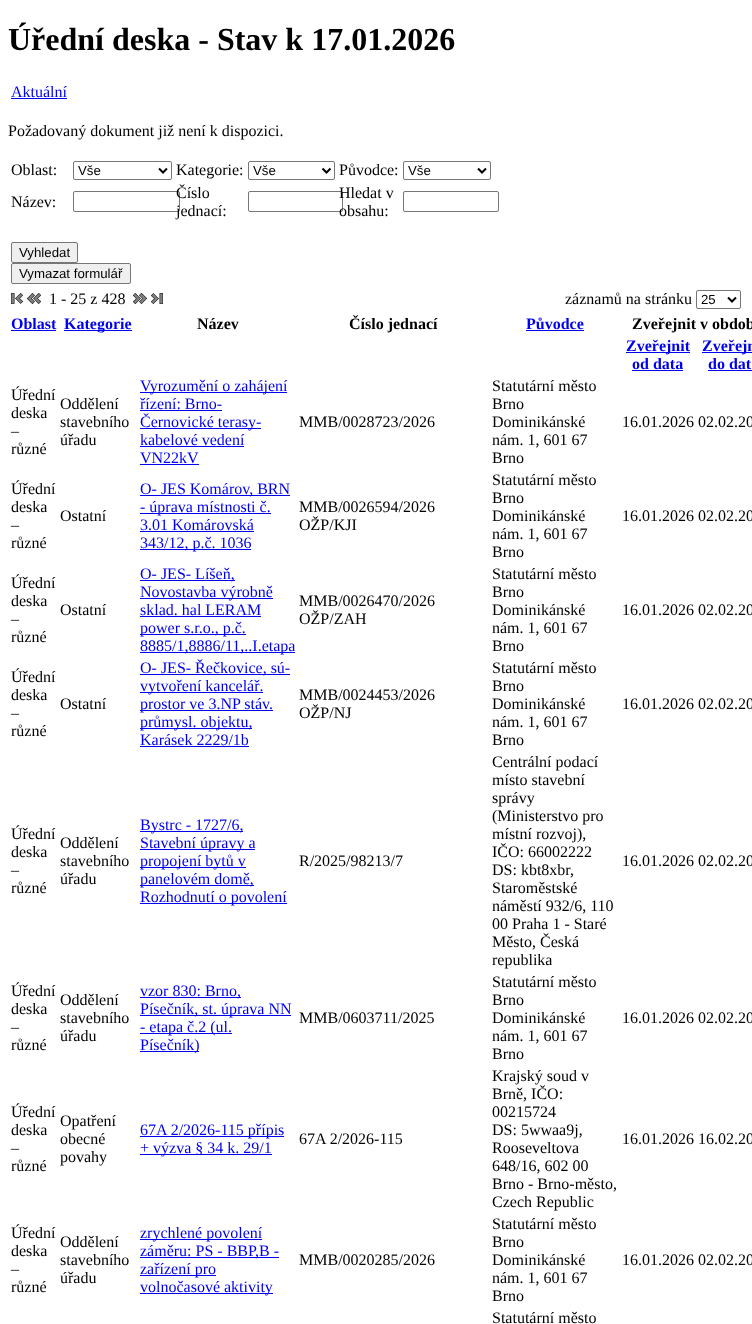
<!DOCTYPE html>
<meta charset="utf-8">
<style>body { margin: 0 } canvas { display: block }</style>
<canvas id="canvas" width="752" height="1324"></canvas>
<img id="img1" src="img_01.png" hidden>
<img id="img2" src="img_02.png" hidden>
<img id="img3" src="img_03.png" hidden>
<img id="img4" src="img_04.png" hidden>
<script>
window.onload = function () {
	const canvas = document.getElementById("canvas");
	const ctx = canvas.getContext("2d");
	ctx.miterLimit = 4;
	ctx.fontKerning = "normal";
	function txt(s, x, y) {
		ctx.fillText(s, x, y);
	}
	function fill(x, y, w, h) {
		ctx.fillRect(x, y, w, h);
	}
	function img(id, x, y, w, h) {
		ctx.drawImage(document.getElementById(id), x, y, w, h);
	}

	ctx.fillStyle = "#FFFFFF";
	fill(0, 0, 752, 1324);
	ctx.fillStyle = "#0000EE";
	fill(11, 98, 56, 1);
	ctx.beginPath();
	ctx.roundRect(73.5, 161.5, 98, 18, 1.5);
	ctx.strokeStyle = "#767676";
	ctx.stroke();
	ctx.beginPath();
	ctx.moveTo(159, 168.5);
	ctx.lineTo(163, 172.5);
	ctx.lineTo(167, 168.5);
	ctx.strokeStyle = "#000000";
	ctx.lineWidth = 2;
	ctx.stroke();
	ctx.beginPath();
	ctx.roundRect(248.5, 161.5, 86, 18, 1.5);
	ctx.strokeStyle = "#767676";
	ctx.lineWidth = 1;
	ctx.stroke();
	ctx.beginPath();
	ctx.moveTo(322.5, 168.5);
	ctx.lineTo(326.5, 172.5);
	ctx.lineTo(330.5, 168.5);
	ctx.strokeStyle = "#000000";
	ctx.lineWidth = 2;
	ctx.stroke();
	ctx.beginPath();
	ctx.roundRect(403.5, 161.5, 87, 18, 1.5);
	ctx.strokeStyle = "#767676";
	ctx.lineWidth = 1;
	ctx.stroke();
	ctx.beginPath();
	ctx.moveTo(478, 168.5);
	ctx.lineTo(482, 172.5);
	ctx.lineTo(486, 168.5);
	ctx.strokeStyle = "#000000";
	ctx.lineWidth = 2;
	ctx.stroke();
	ctx.beginPath();
	ctx.roundRect(73.5, 191.5, 106, 20, 1.5);
	ctx.strokeStyle = "#767676";
	ctx.lineWidth = 1;
	ctx.stroke();
	ctx.beginPath();
	ctx.roundRect(248.5, 191.5, 94, 20, 1.5);
	ctx.stroke();
	ctx.beginPath();
	ctx.roundRect(403.5, 191.5, 95, 20, 1.5);
	ctx.stroke();
	ctx.fillStyle = "#EFEFEF";
	ctx.beginPath();
	ctx.roundRect(11.5, 242.5, 66, 20, 1.5);
	ctx.fill();
	ctx.stroke();
	ctx.beginPath();
	ctx.roundRect(11.5, 263.5, 119, 20, 1.5);
	ctx.fill();
	ctx.stroke();
	img("img1", 11, 293, 12, 11);
	img("img2", 27, 293, 14, 11);
	img("img3", 133, 293, 14, 11);
	img("img4", 151, 293, 12, 11);
	ctx.beginPath();
	ctx.roundRect(696.5, 290.5, 44, 18, 1.5);
	ctx.stroke();
	ctx.beginPath();
	ctx.moveTo(728, 297.5);
	ctx.lineTo(732, 301.5);
	ctx.lineTo(736, 297.5);
	ctx.strokeStyle = "#000000";
	ctx.lineWidth = 2;
	ctx.stroke();
	ctx.fillStyle = "#0000EE";
	fill(11, 330, 45, 1);
	fill(64, 330, 68, 1);
	fill(526, 330, 58, 1);
	fill(626, 352, 64, 1);
	fill(632, 370, 51, 1);
	fill(702, 352, 50, 1);
	fill(708, 370, 44, 1);
	fill(140, 392, 147, 1);
	fill(140, 410, 82, 1);
	fill(140, 428, 121, 1);
	fill(140, 446, 104, 1);
	fill(140, 464, 59, 1);
	fill(140, 495, 150, 1);
	fill(140, 513, 131, 1);
	fill(140, 531, 114, 1);
	fill(140, 549, 111, 1);
	fill(140, 580, 95, 1);
	fill(140, 598, 133, 1);
	fill(140, 616, 121, 1);
	fill(140, 634, 106, 1);
	fill(140, 652, 155, 1);
	fill(140, 674, 150, 1);
	fill(140, 692, 123, 1);
	fill(140, 710, 133, 1);
	fill(140, 728, 112, 1);
	fill(140, 746, 109, 1);
	fill(140, 831, 103, 1);
	fill(140, 849, 115, 1);
	fill(140, 867, 106, 1);
	fill(140, 885, 114, 1);
	fill(140, 903, 147, 1);
	fill(140, 997, 101, 1);
	fill(140, 1015, 151, 1);
	fill(140, 1033, 92, 1);
	fill(140, 1051, 59, 1);
	fill(140, 1136, 144, 1);
	fill(140, 1154, 132, 1);
	fill(140, 1239, 122, 1);
	fill(140, 1257, 139, 1);
	fill(140, 1275, 76, 1);
	fill(140, 1293, 133, 1);
	ctx.font = "bold 32px Liberation Serif";
	ctx.fillStyle = "#000000";
	txt("Úřední deska - Stav k 17.01.2026", 8, 50);
	ctx.font = "16px Liberation Serif";
	ctx.fillStyle = "#0000EE";
	txt("Aktuální", 11, 97);
	ctx.fillStyle = "#000000";
	txt("Požadovaný dokument již není k dispozici.", 8, 136);
	txt("Oblast:", 11, 175);
	ctx.font = "13.25px Liberation Sans";
	txt("Vše", 78, 175);
	ctx.font = "16px Liberation Serif";
	txt("Kategorie:", 176, 175);
	ctx.font = "13.25px Liberation Sans";
	txt("Vše", 253, 175);
	ctx.font = "16px Liberation Serif";
	txt("Původce:", 339, 175);
	ctx.font = "13.25px Liberation Sans";
	txt("Vše", 408, 175);
	ctx.font = "16px Liberation Serif";
	txt("Název:", 11, 207);
	txt("Číslo", 176, 198);
	txt("jednací:", 176, 216);
	txt("Hledat v", 339, 198);
	txt("obsahu:", 339, 216);
	ctx.font = "13.25px Liberation Sans";
	txt("Vyhledat", 19, 257);
	txt("Vymazat formulář", 19, 278);
	ctx.font = "16px Liberation Serif";
	txt("1 - 25 z 428", 49, 304);
	txt("záznamů na stránku", 565, 304);
	ctx.font = "13.25px Liberation Sans";
	txt("25", 701, 304);
	ctx.font = "bold 16px Liberation Serif";
	ctx.fillStyle = "#0000EE";
	txt("Oblast", 11, 329);
	txt("Kategorie", 64, 329);
	ctx.fillStyle = "#000000";
	txt("Název", 197, 329);
	txt("Číslo jednací", 349, 329);
	ctx.fillStyle = "#0000EE";
	txt("Původce", 526, 329);
	ctx.fillStyle = "#000000";
	txt("Zveřejnit v obdob", 632, 329);
	ctx.fillStyle = "#0000EE";
	txt("Zveřejnit", 626, 351);
	txt("od data", 632, 369);
	txt("Zveřejn", 702, 351);
	txt("do dat", 708, 369);
	ctx.font = "16px Liberation Serif";
	ctx.fillStyle = "#000000";
	txt("Úřední", 11, 400);
	txt("deska", 11, 418);
	txt("–", 11, 436);
	txt("různé", 11, 454);
	txt("Oddělení", 60, 409);
	txt("stavebního", 60, 427);
	txt("úřadu", 60, 445);
	ctx.fillStyle = "#0000EE";
	txt("Vyrozumění o zahájení", 140, 391);
	txt("řízení: Brno-", 140, 409);
	txt("Černovické terasy-", 140, 427);
	txt("kabelové vedení", 140, 445);
	txt("VN22kV", 140, 463);
	ctx.fillStyle = "#000000";
	txt("MMB/0028723/2026", 299, 427);
	txt("Statutární město", 492, 391);
	txt("Brno", 492, 409);
	txt("Dominikánské", 492, 427);
	txt("nám. 1, 601 67", 492, 445);
	txt("Brno", 492, 463);
	txt("16.01.2026 02.02.20", 622, 427);
	txt("Úřední", 11, 494);
	txt("deska", 11, 512);
	txt("–", 11, 530);
	txt("různé", 11, 548);
	txt("Ostatní", 60, 521);
	ctx.fillStyle = "#0000EE";
	txt("O- JES Komárov, BRN", 140, 494);
	txt("- úprava místnosti č.", 140, 512);
	txt("3.01 Komárovská", 140, 530);
	txt("343/12, p.č. 1036", 140, 548);
	ctx.fillStyle = "#000000";
	txt("MMB/0026594/2026", 299, 512);
	txt("OŽP/KJI", 299, 530);
	txt("Statutární město", 492, 485);
	txt("Brno", 492, 503);
	txt("Dominikánské", 492, 521);
	txt("nám. 1, 601 67", 492, 539);
	txt("Brno", 492, 557);
	txt("16.01.2026 02.02.20", 622, 521);
	txt("Úřední", 11, 588);
	txt("deska", 11, 606);
	txt("–", 11, 624);
	txt("různé", 11, 642);
	txt("Ostatní", 60, 615);
	ctx.fillStyle = "#0000EE";
	txt("O- JES- Líšeň,", 140, 579);
	txt("Novostavba výrobně", 140, 597);
	txt("sklad. hal LERAM", 140, 615);
	txt("power s.r.o., p.č.", 140, 633);
	txt("8885/1,8886/11,..I.etapa", 140, 651);
	ctx.fillStyle = "#000000";
	txt("MMB/0026470/2026", 299, 606);
	txt("OŽP/ZAH", 299, 624);
	txt("Statutární město", 492, 579);
	txt("Brno", 492, 597);
	txt("Dominikánské", 492, 615);
	txt("nám. 1, 601 67", 492, 633);
	txt("Brno", 492, 651);
	txt("16.01.2026 02.02.20", 622, 615);
	txt("Úřední", 11, 682);
	txt("deska", 11, 700);
	txt("–", 11, 718);
	txt("různé", 11, 736);
	txt("Ostatní", 60, 709);
	ctx.fillStyle = "#0000EE";
	txt("O- JES- Řečkovice, sú-", 140, 673);
	txt("vytvoření kancelář.", 140, 691);
	txt("prostor ve 3.NP stáv.", 140, 709);
	txt("průmysl. objektu,", 140, 727);
	txt("Karásek 2229/1b", 140, 745);
	ctx.fillStyle = "#000000";
	txt("MMB/0024453/2026", 299, 700);
	txt("OŽP/NJ", 299, 718);
	txt("Statutární město", 492, 673);
	txt("Brno", 492, 691);
	txt("Dominikánské", 492, 709);
	txt("nám. 1, 601 67", 492, 727);
	txt("Brno", 492, 745);
	txt("16.01.2026 02.02.20", 622, 709);
	txt("Úřední", 11, 839);
	txt("deska", 11, 857);
	txt("–", 11, 875);
	txt("různé", 11, 893);
	txt("Oddělení", 60, 848);
	txt("stavebního", 60, 866);
	txt("úřadu", 60, 884);
	ctx.fillStyle = "#0000EE";
	txt("Bystrc - 1727/6,", 140, 830);
	txt("Stavební úpravy a", 140, 848);
	txt("propojení bytů v", 140, 866);
	txt("panelovém domě,", 140, 884);
	txt("Rozhodnutí o povolení", 140, 902);
	ctx.fillStyle = "#000000";
	txt("R/2025/98213/7", 299, 866);
	txt("Centrální podací", 492, 767);
	txt("místo stavební", 492, 785);
	txt("správy", 492, 803);
	txt("(Ministerstvo pro", 492, 821);
	txt("místní rozvoj),", 492, 839);
	txt("IČO: 66002222", 492, 857);
	txt("DS: kbt8xbr,", 492, 875);
	txt("Staroměstské", 492, 893);
	txt("náměstí 932/6, 110", 492, 911);
	txt("00 Praha 1 - Staré", 492, 929);
	txt("Město, Česká", 492, 947);
	txt("republika", 492, 965);
	txt("16.01.2026 02.02.20", 622, 866);
	txt("Úřední", 11, 996);
	txt("deska", 11, 1014);
	txt("–", 11, 1032);
	txt("různé", 11, 1050);
	txt("Oddělení", 60, 1005);
	txt("stavebního", 60, 1023);
	txt("úřadu", 60, 1041);
	ctx.fillStyle = "#0000EE";
	txt("vzor 830: Brno,", 140, 996);
	txt("Písečník, st. úprava NN", 140, 1014);
	txt("- etapa č.2 (ul.", 140, 1032);
	txt("Písečník)", 140, 1050);
	ctx.fillStyle = "#000000";
	txt("MMB/0603711/2025", 299, 1023);
	txt("Statutární město", 492, 987);
	txt("Brno", 492, 1005);
	txt("Dominikánské", 492, 1023);
	txt("nám. 1, 601 67", 492, 1041);
	txt("Brno", 492, 1059);
	txt("16.01.2026 02.02.20", 622, 1023);
	txt("Úřední", 11, 1117);
	txt("deska", 11, 1135);
	txt("–", 11, 1153);
	txt("různé", 11, 1171);
	txt("Opatření", 60, 1126);
	txt("obecné", 60, 1144);
	txt("povahy", 60, 1162);
	ctx.fillStyle = "#0000EE";
	txt("67A 2/2026-115 přípis", 140, 1135);
	txt("+ výzva § 34 k. 29/1", 140, 1153);
	ctx.fillStyle = "#000000";
	txt("67A 2/2026-115", 299, 1144);
	txt("Krajský soud v", 492, 1081);
	txt("Brně, IČO:", 492, 1099);
	txt("00215724", 492, 1117);
	txt("DS: 5wwaa9j,", 492, 1135);
	txt("Rooseveltova", 492, 1153);
	txt("648/16, 602 00", 492, 1171);
	txt("Brno - Brno-město,", 492, 1189);
	txt("Czech Republic", 492, 1207);
	txt("16.01.2026 16.02.20", 622, 1144);
	txt("Úřední", 11, 1238);
	txt("deska", 11, 1256);
	txt("–", 11, 1274);
	txt("různé", 11, 1292);
	txt("Oddělení", 60, 1247);
	txt("stavebního", 60, 1265);
	txt("úřadu", 60, 1283);
	ctx.fillStyle = "#0000EE";
	txt("zrychlené povolení", 140, 1238);
	txt("záměru: PS - BBP,B -", 140, 1256);
	txt("zařízení pro", 140, 1274);
	txt("volnočasové aktivity", 140, 1292);
	ctx.fillStyle = "#000000";
	txt("MMB/0020285/2026", 299, 1265);
	txt("Statutární město", 492, 1229);
	txt("Brno", 492, 1247);
	txt("Dominikánské", 492, 1265);
	txt("nám. 1, 601 67", 492, 1283);
	txt("Brno", 492, 1301);
	txt("16.01.2026 02.02.20", 622, 1265);
	txt("Statutární město", 492, 1323);
};
</script>
